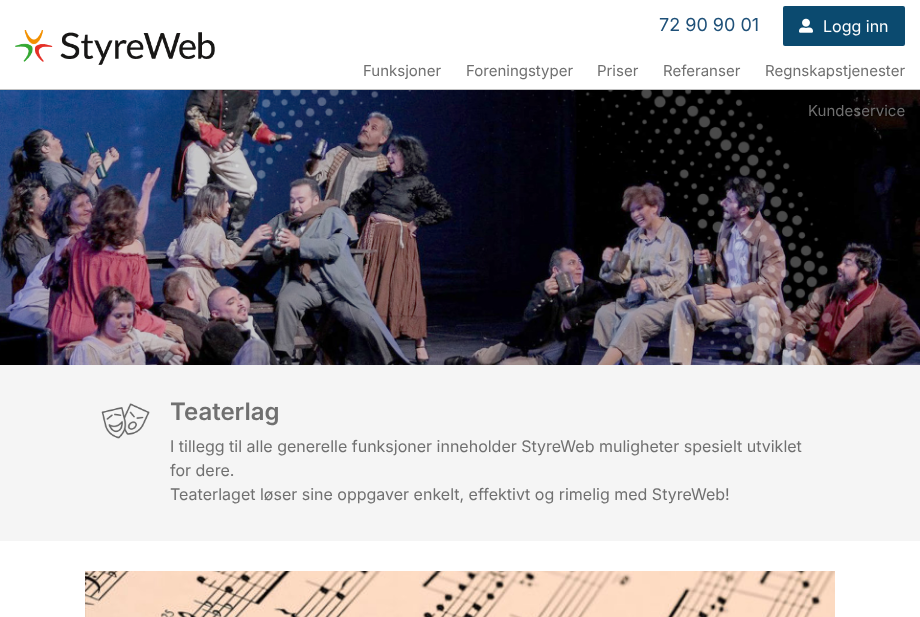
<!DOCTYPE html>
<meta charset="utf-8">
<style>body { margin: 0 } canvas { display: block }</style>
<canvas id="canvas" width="920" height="617"></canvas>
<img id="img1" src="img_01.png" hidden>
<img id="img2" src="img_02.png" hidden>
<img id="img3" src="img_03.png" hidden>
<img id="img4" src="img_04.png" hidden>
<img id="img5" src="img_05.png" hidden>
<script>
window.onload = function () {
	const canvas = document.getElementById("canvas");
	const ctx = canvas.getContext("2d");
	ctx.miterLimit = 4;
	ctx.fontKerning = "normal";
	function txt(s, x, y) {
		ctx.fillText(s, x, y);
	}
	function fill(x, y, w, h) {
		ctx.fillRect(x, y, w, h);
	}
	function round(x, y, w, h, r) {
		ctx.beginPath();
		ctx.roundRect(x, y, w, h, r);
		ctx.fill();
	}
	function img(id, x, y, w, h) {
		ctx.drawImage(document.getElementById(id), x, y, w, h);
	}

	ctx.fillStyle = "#FFFFFF";
	fill(0, 0, 920, 617);
	ctx.fillStyle = "#C1C1C1";
	fill(0, 89, 920, 1);
	img("img1", 15, 30, 200, 35);
	ctx.fillStyle = "#0B4A6F";
	round(783, 6, 122, 40, 2);
	img("img2", 799, 18, 14, 15);
	img("img3", 0, 90, 920, 275);
	ctx.fillStyle = "#F5F5F5";
	fill(0, 365, 920, 176);
	img("img4", 101, 403, 49, 36);
	img("img5", 85, 571, 750, 46);
	ctx.font = "18px Inter";
	ctx.fillStyle = "#1E5078";
	txt("72 90 90 01", 659, 31);
	ctx.font = "16px Inter";
	ctx.fillStyle = "#FFFFFF";
	txt("Logg inn", 823, 32);
	ctx.font = "15px Inter";
	ctx.fillStyle = "#707070";
	txt("Funksjoner", 363, 76);
	txt("Foreningstyper", 466, 76);
	txt("Priser", 597, 76);
	txt("Referanser", 663, 76);
	txt("Regnskapstjenester", 765, 76);
	txt("Kundeservice", 808, 116);
	ctx.font = "600 24px Inter";
	txt("Teaterlag", 170, 420);
	ctx.font = "16px Inter";
	txt("I tillegg til alle generelle funksjoner inneholder StyreWeb muligheter spesielt utviklet", 170, 452);
	txt("for dere.", 170, 476);
	txt("Teaterlaget løser sine oppgaver enkelt, effektivt og rimelig med StyreWeb!", 170, 500);
};
</script>
